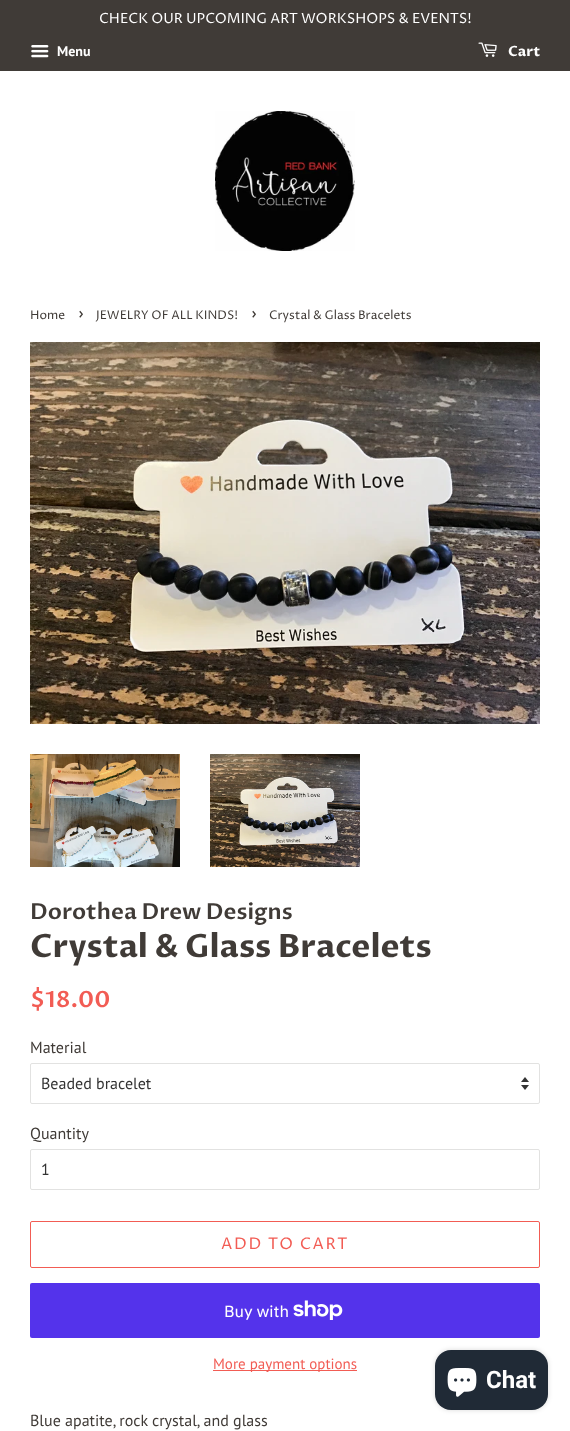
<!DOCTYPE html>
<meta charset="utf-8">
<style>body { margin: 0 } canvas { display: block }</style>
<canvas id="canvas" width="570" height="1431"></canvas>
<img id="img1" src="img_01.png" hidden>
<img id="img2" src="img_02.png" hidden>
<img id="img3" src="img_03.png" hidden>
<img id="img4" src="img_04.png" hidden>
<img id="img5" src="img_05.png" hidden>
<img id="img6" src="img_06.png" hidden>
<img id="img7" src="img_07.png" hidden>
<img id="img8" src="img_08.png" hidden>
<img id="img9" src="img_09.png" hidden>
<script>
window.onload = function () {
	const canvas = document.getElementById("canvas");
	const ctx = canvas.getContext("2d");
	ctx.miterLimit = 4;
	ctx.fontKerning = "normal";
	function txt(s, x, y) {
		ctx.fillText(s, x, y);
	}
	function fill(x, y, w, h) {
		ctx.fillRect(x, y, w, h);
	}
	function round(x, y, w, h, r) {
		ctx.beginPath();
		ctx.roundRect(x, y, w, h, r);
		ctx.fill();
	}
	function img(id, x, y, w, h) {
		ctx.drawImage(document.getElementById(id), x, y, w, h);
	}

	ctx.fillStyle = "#FFFFFF";
	fill(0, 0, 570, 1431);
	ctx.fillStyle = "#403B37";
	fill(0, 0, 570, 71);
	img("img1", 31, 45, 18, 13);
	img("img2", 478, 42, 19, 15);
	img("img3", 215, 111, 140, 140);
	img("img4", 30, 342, 510, 382);
	img("img5", 30, 754, 150, 113);
	img("img6", 210, 754, 150, 113);
	img("img7", 521, 1077, 8, 13);
	ctx.beginPath();
	ctx.roundRect(30.5, 1063.5, 509, 40, 1.5);
	ctx.strokeStyle = "#E2E2E1";
	ctx.stroke();
	ctx.beginPath();
	ctx.roundRect(30.5, 1149.5, 509, 40, 1.5);
	ctx.stroke();
	ctx.beginPath();
	ctx.roundRect(30.5, 1221.5, 509, 46, 1.5);
	ctx.strokeStyle = "#F25C54";
	ctx.stroke();
	ctx.fillStyle = "#5433EB";
	round(30, 1283, 510, 55, 2);
	img("img8", 293, 1300, 50, 20);
	ctx.fillStyle = "#F25C54";
	fill(213, 1370, 144, 1);
	ctx.fillStyle = "rgba(0, 0, 0, 0.15)";
	ctx.filter = "blur(2.5px)";
	ctx.beginPath();
	ctx.roundRect(435, 1350, 113, 60, 16);
	ctx.fill();
	ctx.filter = "none";
	ctx.fillStyle = "#202A36";
	round(435, 1350, 113, 60, 16);
	img("img9", 447, 1368, 30, 29);
	ctx.font = "14px Proza Libre";
	ctx.fillStyle = "#FFFFFF";
	txt("CHECK OUR UPCOMING ART WORKSHOPS & EVENTS!", 99, 23);
	ctx.font = "bold 14px PT Sans";
	txt("Menu", 57, 56);
	ctx.font = "bold 14px Proza Libre";
	txt("Cart", 508, 56);
	ctx.font = "12px Proza Libre";
	ctx.fillStyle = "#403B37";
	txt("Home", 30, 319);
	ctx.font = "17px Proza Libre";
	txt("›", 78, 319);
	ctx.font = "12px Proza Libre";
	txt("JEWELRY OF ALL KINDS!", 96, 319);
	ctx.font = "17px Proza Libre";
	txt("›", 251, 319);
	ctx.font = "12px Proza Libre";
	txt("Crystal & Glass Bracelets", 269, 319);
	ctx.font = "600 22px Proza Libre";
	txt("Dorothea Drew Designs", 30, 919);
	ctx.font = "bold 32px Proza Libre";
	txt("Crystal & Glass Bracelets", 30, 957);
	ctx.font = "600 22.5px Proza Libre";
	ctx.fillStyle = "#F25C54";
	txt("$18.00", 30, 1007);
	ctx.font = "16px PT Sans";
	ctx.fillStyle = "#403B37";
	txt("Material", 30, 1053);
	ctx.fillStyle = "#333333";
	txt("Beaded bracelet", 41, 1089);
	ctx.fillStyle = "#403B37";
	txt("Quantity", 30, 1139);
	ctx.fillStyle = "#333333";
	txt("1", 41, 1175);
	ctx.letterSpacing = "1.6px";
	ctx.font = "16px Proza Libre";
	ctx.fillStyle = "#F25C54";
	txt("ADD TO CART", 221, 1249);
	ctx.letterSpacing = "0px";
	ctx.font = "16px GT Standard";
	ctx.fillStyle = "#FFFFFF";
	txt("Buy with", 224, 1317);
	ctx.font = "15px PT Sans";
	ctx.fillStyle = "#F25C54";
	txt("More payment options", 213, 1369);
	ctx.font = "16px PT Sans";
	ctx.fillStyle = "#403B37";
	txt("Blue apatite, rock crystal, and glass", 30, 1426);
	ctx.font = "bold 24px Roboto";
	ctx.fillStyle = "#FFFFFF";
	txt("Chat", 486, 1388);
};
</script>
